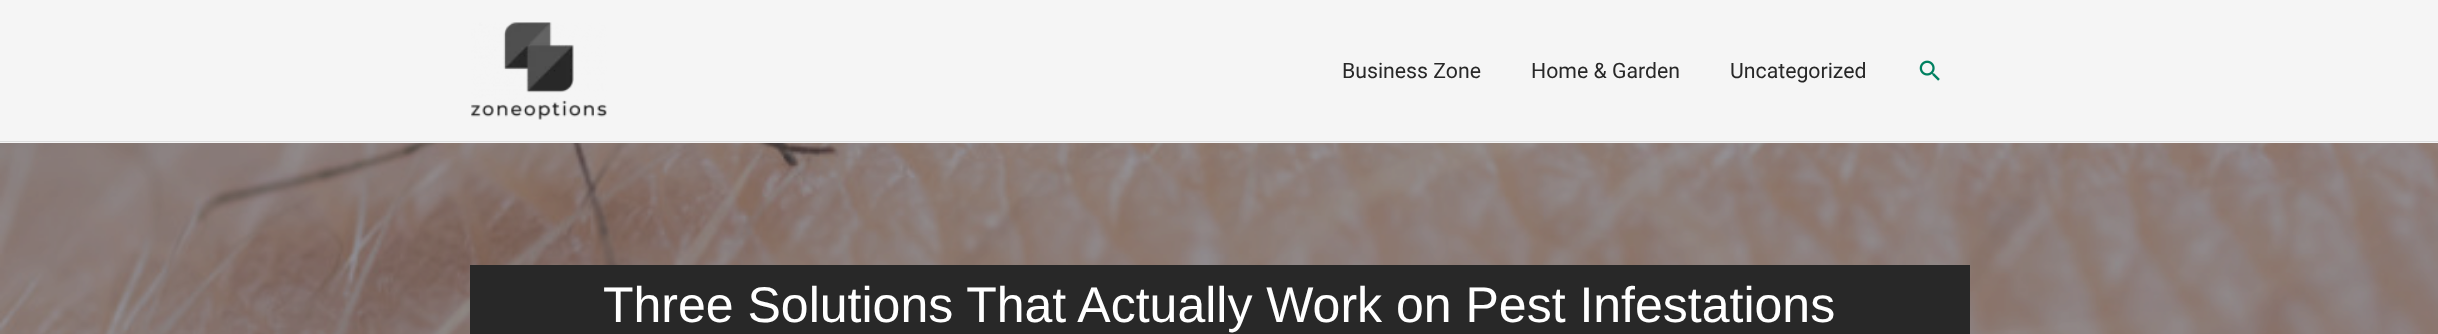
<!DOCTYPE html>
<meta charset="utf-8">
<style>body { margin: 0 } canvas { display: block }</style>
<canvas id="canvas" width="2438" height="334"></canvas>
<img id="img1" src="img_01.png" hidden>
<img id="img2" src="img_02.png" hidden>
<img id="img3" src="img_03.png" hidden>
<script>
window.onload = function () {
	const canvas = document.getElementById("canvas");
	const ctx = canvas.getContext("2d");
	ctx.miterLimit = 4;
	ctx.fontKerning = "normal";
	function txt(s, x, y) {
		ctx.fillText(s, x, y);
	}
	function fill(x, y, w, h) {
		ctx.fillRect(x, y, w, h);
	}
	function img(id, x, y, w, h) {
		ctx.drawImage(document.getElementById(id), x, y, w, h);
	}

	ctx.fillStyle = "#FFFFFF";
	fill(0, 0, 2438, 334);
	ctx.fillStyle = "#F5F5F5";
	fill(0, 0, 2438, 143);
	ctx.fillStyle = "#DDDDDD";
	fill(0, 141, 2438, 1);
	img("img1", 471, 22, 136, 98);
	img("img2", 1919, 60, 21, 21);
	img("img3", 0, 143, 2438, 191);
	ctx.fillStyle = "#282828";
	fill(470, 265, 1500, 69);
	ctx.font = "21.25px Roboto";
	txt("Business Zone", 1342, 78);
	txt("Home & Garden", 1531, 78);
	txt("Uncategorized", 1730, 78);
	ctx.font = "50px Liberation Sans";
	ctx.fillStyle = "#FFFFFF";
	txt("Three Solutions That Actually Work on Pest Infestations", 603, 322);
};
</script>
